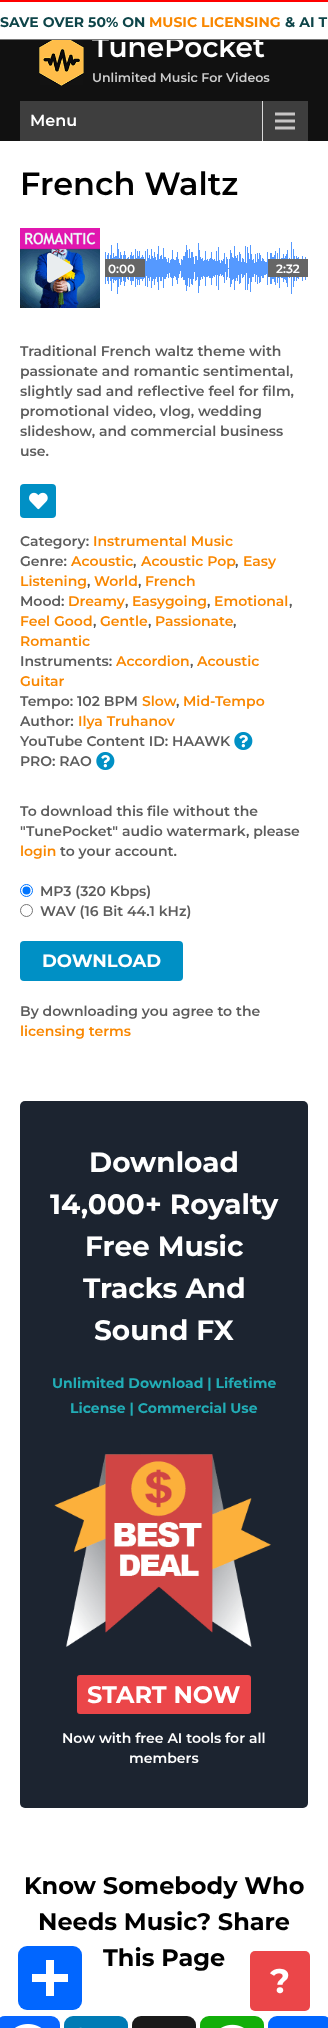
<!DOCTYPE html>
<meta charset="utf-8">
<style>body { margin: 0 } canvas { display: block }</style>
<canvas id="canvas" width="328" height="2028"></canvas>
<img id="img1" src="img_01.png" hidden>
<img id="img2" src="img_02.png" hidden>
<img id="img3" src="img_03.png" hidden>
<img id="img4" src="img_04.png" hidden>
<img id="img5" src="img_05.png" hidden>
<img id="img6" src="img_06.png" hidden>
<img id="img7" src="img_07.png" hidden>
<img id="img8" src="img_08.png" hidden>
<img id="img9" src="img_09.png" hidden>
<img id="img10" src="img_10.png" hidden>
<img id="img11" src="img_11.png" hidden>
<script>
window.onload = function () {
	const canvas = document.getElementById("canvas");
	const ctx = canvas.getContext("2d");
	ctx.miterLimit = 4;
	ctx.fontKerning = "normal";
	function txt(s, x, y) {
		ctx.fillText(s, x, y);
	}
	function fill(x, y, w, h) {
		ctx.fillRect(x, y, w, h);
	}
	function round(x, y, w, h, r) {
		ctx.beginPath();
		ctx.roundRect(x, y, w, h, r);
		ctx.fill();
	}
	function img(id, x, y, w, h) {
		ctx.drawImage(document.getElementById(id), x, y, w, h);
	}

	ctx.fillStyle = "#FFFFFF";
	fill(0, 0, 328, 2028);
	ctx.fillStyle = "#FF0000";
	fill(0, 0, 328, 2);
	ctx.fillStyle = "#111111";
	fill(0, 40, 328, 101);
	img("img1", 39, 40, 45, 46);
	ctx.fillStyle = "#3E3E3E";
	fill(20, 101, 288, 40);
	img("img2", 262, 101, 33, 40);
	img("img3", 20, 228, 80, 80);
	img("img4", 47, 252, 27, 31);
	img("img5", 105, 242, 201, 52);
	ctx.fillStyle = "#666666";
	fill(105, 259, 40, 18);
	fill(268, 259, 40, 18);
	ctx.fillStyle = "#0090C5";
	round(20, 484, 36, 34, 4);
	img("img6", 29, 492, 19, 18);
	img("img7", 234, 732, 19, 18);
	img("img7", 96, 752, 19, 18);
	ctx.beginPath();
	ctx.arc(26.5, 890.5, 6, 0, Math.PI * 2);
	ctx.strokeStyle = "#0075FF";
	ctx.stroke();
	ctx.fillStyle = "#0075FF";
	ctx.beginPath();
	ctx.arc(26.5, 890.5, 4, 0, Math.PI * 2);
	ctx.fill();
	ctx.beginPath();
	ctx.arc(26.5, 910.5, 6, 0, Math.PI * 2);
	ctx.strokeStyle = "#767676";
	ctx.stroke();
	ctx.fillStyle = "#0090C5";
	round(20, 941, 163, 40, 4);
	ctx.fillStyle = "#1C2430";
	round(20, 1101, 288, 707, 5);
	img("img8", 54, 1454, 217, 193);
	ctx.fillStyle = "#EB4649";
	round(77, 1675, 174, 39, 3);
	ctx.fillStyle = "#0866FF";
	round(-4, 2016, 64, 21, 9);
	img("img9", 15, 2024, 27, 4);
	ctx.fillStyle = "#007BB5";
	round(64, 2016, 64, 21, 9);
	img("img10", 79, 2027, 3, 1);
	ctx.fillStyle = "#1A1A1A";
	round(132, 2016, 64, 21, 9);
	ctx.fillStyle = "#12AF0A";
	round(200, 2016, 64, 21, 9);
	img("img11", 221, 2024, 23, 4);
	ctx.fillStyle = "#0166FF";
	round(268, 2016, 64, 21, 9);
	round(18, 1946, 64, 64, 9);
	ctx.fillStyle = "#FFFFFF";
	fill(46, 1960, 8, 36);
	fill(32, 1974, 36, 8);
	ctx.fillStyle = "#EB4649";
	round(250, 1951, 60, 60, 5);
	ctx.font = "bold 14px Montserrat";
	ctx.fillStyle = "#0E4549";
	txt("SAVE OVER 50% ON", 0, 27);
	ctx.fillStyle = "#F98700";
	txt("MUSIC LICENSING", 149, 27);
	ctx.fillStyle = "#0E4549";
	txt("& AI T", 285, 27);
	ctx.font = "600 28px Montserrat";
	ctx.fillStyle = "#FFFFFF";
	txt("TunePocket", 92, 57);
	ctx.fillStyle = "#767676";
	fill(0, 39, 328, 1);
	ctx.font = "600 12.6px Montserrat";
	ctx.fillStyle = "#CCCCCC";
	txt("Unlimited Music For Videos", 92, 82);
	ctx.font = "600 16px Montserrat";
	ctx.fillStyle = "#FFFFFF";
	txt("Menu", 30, 126);
	ctx.font = "600 32px Montserrat";
	ctx.fillStyle = "#000000";
	txt("French Waltz", 20, 195);
	ctx.font = "600 12px Montserrat";
	ctx.fillStyle = "#FFFFFF";
	txt("0:00", 108, 273);
	txt("2:32", 276, 273);
	ctx.font = "600 14px Montserrat";
	ctx.fillStyle = "#5C5C5C";
	txt("Traditional French waltz theme with", 20, 356);
	txt("passionate and romantic sentimental,", 20, 376);
	txt("slightly sad and reflective feel for film,", 20, 396);
	txt("promotional video, vlog, wedding", 20, 416);
	txt("slideshow, and commercial business", 20, 436);
	txt("use.", 20, 456);
	txt("Category:", 20, 546);
	ctx.fillStyle = "#F98700";
	txt("Instrumental Music", 93, 546);
	ctx.fillStyle = "#5C5C5C";
	txt("Genre:", 20, 566);
	ctx.fillStyle = "#F98700";
	txt("Acoustic", 71, 566);
	ctx.fillStyle = "#5C5C5C";
	txt(",", 133, 566);
	ctx.fillStyle = "#F98700";
	txt("Acoustic Pop", 141, 566);
	ctx.fillStyle = "#5C5C5C";
	txt(",", 235, 566);
	ctx.fillStyle = "#F98700";
	txt("Easy", 243, 566);
	txt("Listening", 20, 586);
	ctx.fillStyle = "#5C5C5C";
	txt(",", 87, 586);
	ctx.fillStyle = "#F98700";
	txt("World", 94, 586);
	ctx.fillStyle = "#5C5C5C";
	txt(",", 138, 586);
	ctx.fillStyle = "#F98700";
	txt("French", 145, 586);
	ctx.fillStyle = "#5C5C5C";
	txt("Mood:", 20, 606);
	ctx.fillStyle = "#F98700";
	txt("Dreamy", 68, 606);
	ctx.fillStyle = "#5C5C5C";
	txt(",", 125, 606);
	ctx.fillStyle = "#F98700";
	txt("Easygoing", 132, 606);
	ctx.fillStyle = "#5C5C5C";
	txt(",", 207, 606);
	ctx.fillStyle = "#F98700";
	txt("Emotional", 214, 606);
	ctx.fillStyle = "#5C5C5C";
	txt(",", 289, 606);
	ctx.fillStyle = "#F98700";
	txt("Feel Good", 20, 626);
	ctx.fillStyle = "#5C5C5C";
	txt(",", 93, 626);
	ctx.fillStyle = "#F98700";
	txt("Gentle", 100, 626);
	ctx.fillStyle = "#5C5C5C";
	txt(",", 148, 626);
	ctx.fillStyle = "#F98700";
	txt("Passionate", 155, 626);
	ctx.fillStyle = "#5C5C5C";
	txt(",", 233, 626);
	ctx.fillStyle = "#F98700";
	txt("Romantic", 20, 646);
	ctx.fillStyle = "#5C5C5C";
	txt("Instruments:", 20, 666);
	ctx.fillStyle = "#F98700";
	txt("Accordion", 116, 666);
	ctx.fillStyle = "#5C5C5C";
	txt(",", 190, 666);
	ctx.fillStyle = "#F98700";
	txt("Acoustic", 197, 666);
	txt("Guitar", 20, 686);
	ctx.fillStyle = "#5C5C5C";
	txt("Tempo: 102 BPM", 20, 706);
	ctx.fillStyle = "#F98700";
	txt("Slow", 142, 706);
	ctx.fillStyle = "#5C5C5C";
	txt(",", 176, 706);
	ctx.fillStyle = "#F98700";
	txt("Mid-Tempo", 183, 706);
	ctx.fillStyle = "#5C5C5C";
	txt("Author:", 20, 726);
	ctx.fillStyle = "#F98700";
	txt("Ilya Truhanov", 78, 726);
	ctx.fillStyle = "#5C5C5C";
	txt("YouTube Content ID: HAAWK", 20, 746);
	txt("PRO: RAO", 20, 766);
	txt("To download this file without the", 20, 816);
	txt("\"TunePocket\" audio watermark, please", 20, 836);
	ctx.fillStyle = "#F98700";
	txt("login", 20, 856);
	ctx.fillStyle = "#5C5C5C";
	txt("to your account.", 60, 856);
	txt("MP3 (320 Kbps)", 40, 896);
	txt("WAV (16 Bit 44.1 kHz)", 40, 916);
	ctx.font = "bold 18px Montserrat";
	ctx.fillStyle = "#FFFFFF";
	txt("DOWNLOAD", 42, 967);
	ctx.font = "600 14px Montserrat";
	ctx.fillStyle = "#5C5C5C";
	txt("By downloading you agree to the", 20, 1016);
	ctx.fillStyle = "#F98700";
	txt("licensing terms", 20, 1036);
	ctx.font = "bold 28px Montserrat";
	ctx.fillStyle = "#FFFFFF";
	txt("Download", 89, 1172);
	txt("14,000+ Royalty", 50, 1214);
	txt("Free Music", 85, 1256);
	txt("Tracks And", 83, 1298);
	txt("Sound FX", 94, 1340);
	ctx.font = "bold 14px Montserrat";
	ctx.fillStyle = "#22ADB6";
	txt("Unlimited Download | Lifetime", 52, 1388);
	txt("License | Commercial Use", 70, 1413);
	ctx.font = "bold 24px Montserrat";
	ctx.fillStyle = "#FFFFFF";
	txt("START NOW", 87, 1703);
	ctx.font = "600 14px Montserrat";
	txt("Now with free AI tools for all", 62, 1743);
	txt("members", 129, 1763);
	ctx.font = "bold 24px Montserrat";
	ctx.fillStyle = "#000000";
	txt("Know Somebody Who", 24, 1894);
	txt("Needs Music? Share", 38, 1930);
	txt("This Page", 103, 1966);
	ctx.font = "bold 34px Montserrat";
	ctx.fillStyle = "#FFFFFF";
	txt("?", 270, 1993);
};
</script>
